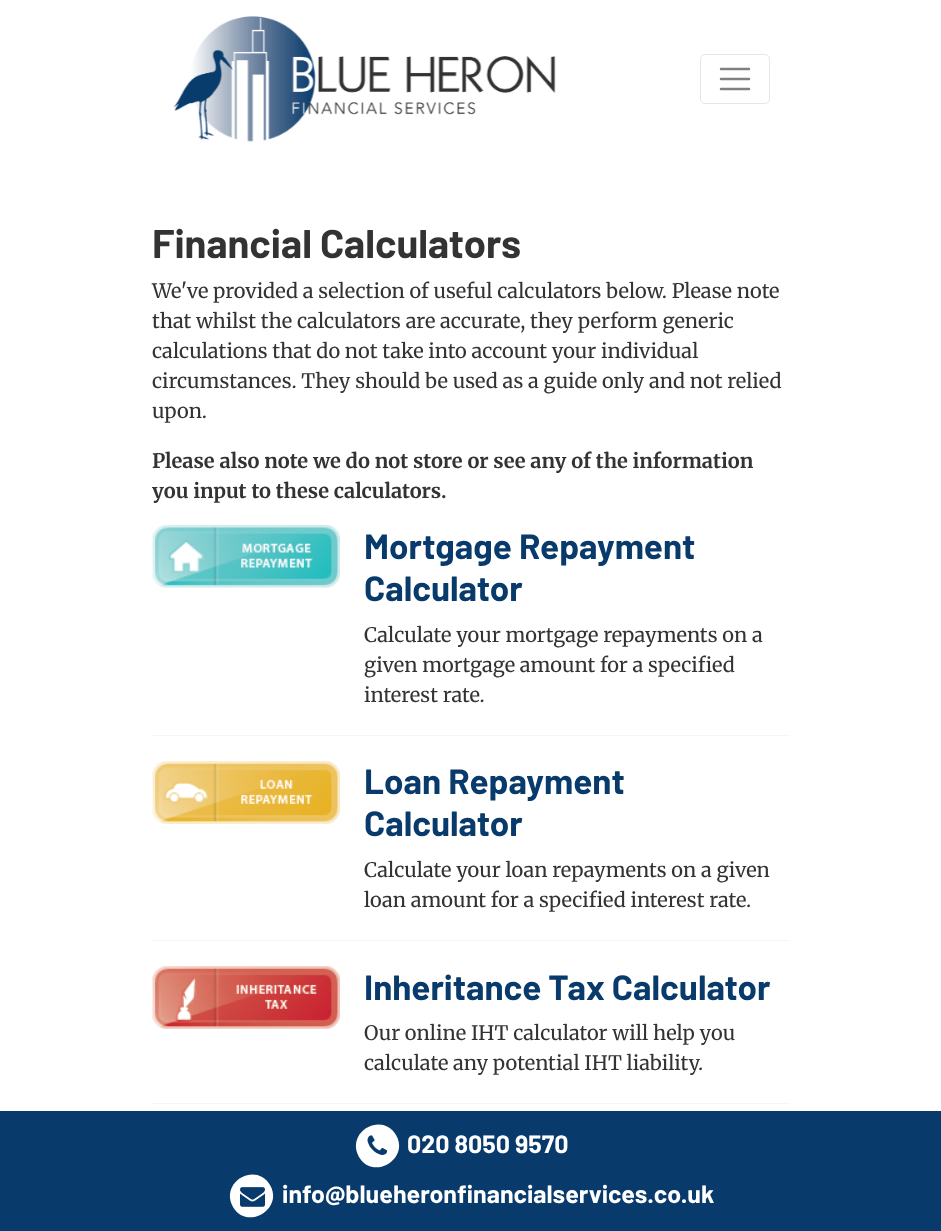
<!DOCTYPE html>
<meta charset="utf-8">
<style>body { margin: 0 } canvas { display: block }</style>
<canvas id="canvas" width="941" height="1231"></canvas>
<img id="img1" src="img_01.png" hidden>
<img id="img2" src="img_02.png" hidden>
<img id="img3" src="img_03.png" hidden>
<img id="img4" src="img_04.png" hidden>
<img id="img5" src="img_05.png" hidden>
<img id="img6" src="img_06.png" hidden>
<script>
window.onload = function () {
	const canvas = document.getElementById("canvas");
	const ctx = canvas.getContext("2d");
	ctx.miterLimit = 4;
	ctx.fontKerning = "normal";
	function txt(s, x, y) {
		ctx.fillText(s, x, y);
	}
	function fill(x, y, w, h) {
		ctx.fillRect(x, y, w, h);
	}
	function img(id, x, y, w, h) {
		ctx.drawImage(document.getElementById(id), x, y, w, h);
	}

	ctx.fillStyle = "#FFFFFF";
	fill(0, 0, 941, 1231);
	img("img1", 173, 16, 383, 126);
	ctx.beginPath();
	ctx.roundRect(700.5, 54.5, 69, 49, 4.5);
	ctx.strokeStyle = "#E6E6E6";
	ctx.stroke();
	ctx.beginPath();
	ctx.moveTo(721, 69);
	ctx.lineTo(749, 69);
	ctx.moveTo(721, 79);
	ctx.lineTo(749, 79);
	ctx.moveTo(721, 89);
	ctx.lineTo(749, 89);
	ctx.strokeStyle = "#808080";
	ctx.lineWidth = 2.5;
	ctx.lineCap = "round";
	ctx.stroke();
	ctx.fillStyle = "#F5F5F5";
	fill(153, 735, 637, 1);
	img("img2", 152, 525, 188, 63);
	fill(153, 940, 637, 1);
	img("img3", 152, 761, 188, 63);
	fill(153, 1103, 637, 1);
	img("img4", 152, 966, 188, 63);
	ctx.fillStyle = "#083B6B";
	fill(0, 1111, 941, 120);
	ctx.fillStyle = "#FFFFFF";
	ctx.beginPath();
	ctx.moveTo(396, 1135);
	ctx.bezierCurveTo(410, 1159, 373, 1181, 359, 1157);
	ctx.bezierCurveTo(345, 1132, 382, 1111, 396, 1135);
	ctx.closePath();
	ctx.fill();
	img("img5", 367, 1135, 21, 20);
	ctx.beginPath();
	ctx.moveTo(270, 1185);
	ctx.bezierCurveTo(284, 1209, 247, 1231, 233, 1207);
	ctx.bezierCurveTo(219, 1182, 256, 1161, 270, 1185);
	ctx.closePath();
	ctx.fill();
	img("img6", 240, 1187, 25, 20);
	ctx.font = "bold 40px Barlow";
	ctx.fillStyle = "#333333";
	txt("Financial Calculators", 152, 258);
	ctx.font = "20px Merriweather";
	txt("We've provided a selection of useful calculators below. Please note", 152, 298);
	txt("that whilst the calculators are accurate, they perform generic", 152, 328);
	txt("calculations that do not take into account your individual", 152, 358);
	txt("circumstances. They should be used as a guide only and not relied", 152, 388);
	txt("upon.", 152, 418);
	ctx.font = "bold 20px Merriweather";
	txt("Please also note we do not store or see any of the information", 152, 468);
	txt("you input to these calculators.", 152, 498);
	ctx.font = "bold 35px Barlow";
	ctx.fillStyle = "#083B6B";
	txt("Mortgage Repayment", 364, 559);
	txt("Calculator", 364, 601);
	ctx.font = "20px Merriweather";
	ctx.fillStyle = "#333333";
	txt("Calculate your mortgage repayments on a", 364, 642);
	txt("given mortgage amount for a specified", 364, 672);
	txt("interest rate.", 364, 702);
	ctx.font = "bold 35px Barlow";
	ctx.fillStyle = "#083B6B";
	txt("Loan Repayment", 364, 794);
	txt("Calculator", 364, 836);
	ctx.font = "20px Merriweather";
	ctx.fillStyle = "#333333";
	txt("Calculate your loan repayments on a given", 364, 877);
	txt("loan amount for a specified interest rate.", 364, 907);
	ctx.font = "bold 35px Barlow";
	ctx.fillStyle = "#083B6B";
	txt("Inheritance Tax Calculator", 364, 1000);
	ctx.font = "20px Merriweather";
	ctx.fillStyle = "#333333";
	txt("Our online IHT calculator will help you", 364, 1040);
	txt("calculate any potential IHT liability.", 364, 1070);
	ctx.font = "bold 25px Barlow";
	ctx.fillStyle = "#FFFFFF";
	txt("020 8050 9570", 407, 1153);
	txt("info@blueheronfinancialservices.co.uk", 282, 1203);
};
</script>
